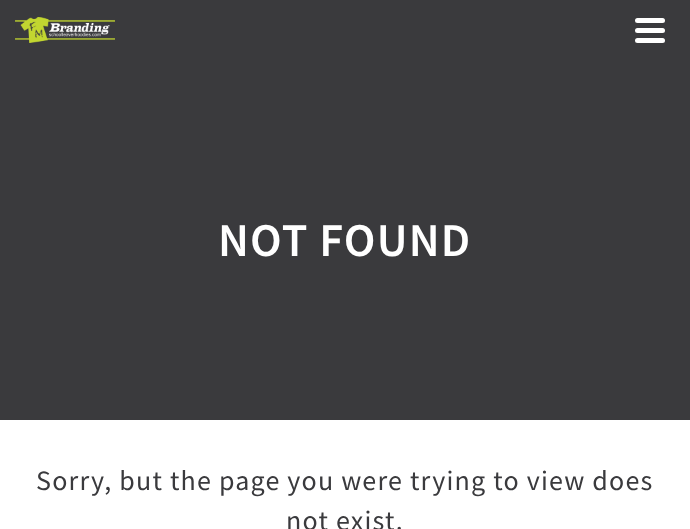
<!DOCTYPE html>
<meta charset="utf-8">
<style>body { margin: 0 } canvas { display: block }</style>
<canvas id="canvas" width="690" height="529"></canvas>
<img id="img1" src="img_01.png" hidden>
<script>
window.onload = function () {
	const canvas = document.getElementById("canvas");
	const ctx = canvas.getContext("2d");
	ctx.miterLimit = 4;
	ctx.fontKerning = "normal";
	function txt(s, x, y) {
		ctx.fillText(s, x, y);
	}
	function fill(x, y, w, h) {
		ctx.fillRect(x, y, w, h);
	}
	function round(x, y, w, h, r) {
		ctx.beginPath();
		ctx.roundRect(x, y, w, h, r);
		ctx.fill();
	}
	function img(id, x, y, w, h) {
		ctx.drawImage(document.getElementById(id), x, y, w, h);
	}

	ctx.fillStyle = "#3A3A3D";
	fill(0, 0, 690, 529);
	img("img1", 15, 17, 100, 26);
	ctx.fillStyle = "#FFFFFF";
	round(635, 18, 30, 5, 2.5);
	round(635, 28, 30, 5, 2.5);
	round(635, 38, 30, 5, 2.5);
	fill(0, 420, 690, 109);
	ctx.letterSpacing = "1.2px";
	ctx.font = "600 47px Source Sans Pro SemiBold";
	txt("NOT FOUND", 218, 256);
	ctx.font = "28px Source Sans Pro";
	ctx.fillStyle = "#3A3A3D";
	txt("Sorry, but the page you were trying to view does", 36, 490);
	txt("not exist.", 286, 530);
};
</script>
